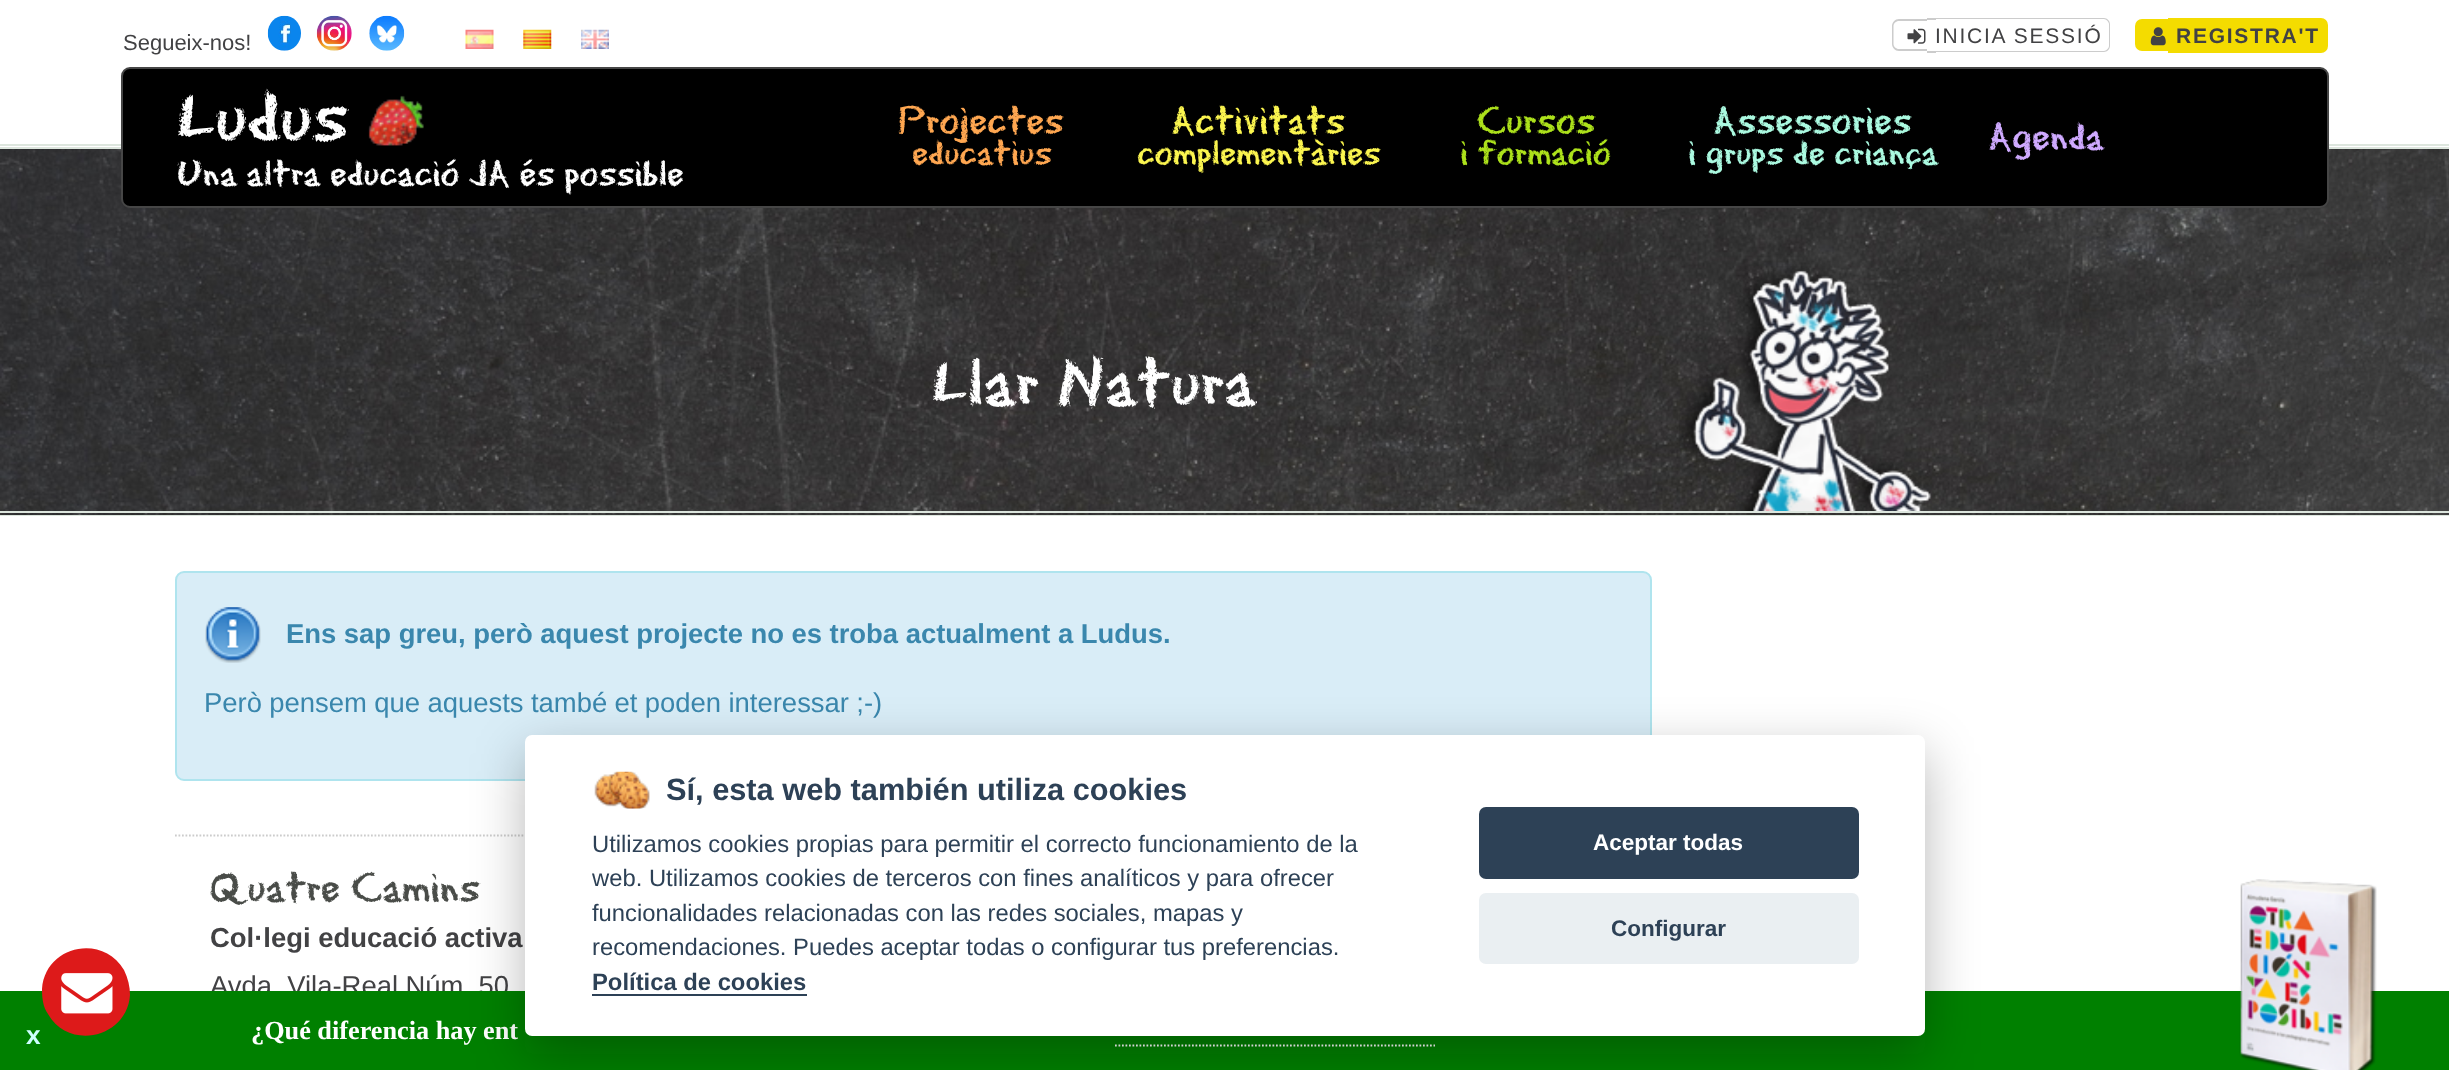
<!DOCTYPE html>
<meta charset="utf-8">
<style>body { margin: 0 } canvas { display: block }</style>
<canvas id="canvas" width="2449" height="1070"></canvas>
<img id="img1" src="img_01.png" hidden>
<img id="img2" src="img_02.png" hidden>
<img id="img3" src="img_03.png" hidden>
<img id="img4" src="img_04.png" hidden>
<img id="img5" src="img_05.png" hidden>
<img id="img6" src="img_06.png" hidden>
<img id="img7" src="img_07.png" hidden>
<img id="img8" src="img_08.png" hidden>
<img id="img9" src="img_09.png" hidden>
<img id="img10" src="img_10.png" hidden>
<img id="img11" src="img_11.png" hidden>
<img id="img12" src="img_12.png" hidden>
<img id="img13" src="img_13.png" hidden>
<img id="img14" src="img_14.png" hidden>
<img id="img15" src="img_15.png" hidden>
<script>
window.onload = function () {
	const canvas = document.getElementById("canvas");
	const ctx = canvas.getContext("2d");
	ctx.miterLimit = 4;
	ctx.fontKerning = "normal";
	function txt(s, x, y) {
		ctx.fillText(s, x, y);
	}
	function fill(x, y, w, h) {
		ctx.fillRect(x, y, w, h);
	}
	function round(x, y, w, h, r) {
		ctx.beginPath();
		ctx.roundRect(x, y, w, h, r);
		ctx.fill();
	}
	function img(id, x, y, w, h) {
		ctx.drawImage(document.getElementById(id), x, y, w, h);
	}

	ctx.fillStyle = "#FFFFFF";
	fill(0, 0, 2449, 1070);
	img("img1", 0, 149, 2449, 366);
	ctx.fillStyle = "#DDE6DE";
	fill(0, 144, 2449, 2);
	fill(0, 147, 2449, 2);
	img("img2", 267, 15, 34, 36);
	img("img3", 316, 15, 36, 36);
	img("img4", 369, 15, 36, 36);
	img("img5", 465, 29, 29, 20);
	img("img6", 523, 29, 29, 20);
	img("img7", 581, 29, 28, 20);
	ctx.fillStyle = "#CCCCCC";
	ctx.beginPath();
	ctx.moveTo(1899, 19);
	ctx.lineTo(1927, 19);
	ctx.lineTo(1927, 51);
	ctx.lineTo(1899, 51);
	ctx.bezierCurveTo(1895, 51, 1892, 47.5, 1892, 44);
	ctx.lineTo(1892, 26);
	ctx.bezierCurveTo(1892, 22.5, 1895, 19, 1899, 19);
	ctx.closePath();
	ctx.moveTo(1899, 21);
	ctx.lineTo(1927, 21);
	ctx.lineTo(1927, 49);
	ctx.lineTo(1899, 49);
	ctx.bezierCurveTo(1896, 49, 1893.5, 46.5, 1893.5, 44);
	ctx.lineTo(1893.5, 26);
	ctx.bezierCurveTo(1893.5, 23.5, 1896, 21, 1899, 21);
	ctx.closePath();
	ctx.fill("evenodd");
	fill(1927, 18, 9, 2);
	fill(1927, 51, 9, 2);
	ctx.beginPath();
	ctx.moveTo(1936, 18);
	ctx.lineTo(2104, 18);
	ctx.bezierCurveTo(2107, 18, 2110, 21, 2110, 24);
	ctx.lineTo(2110, 46);
	ctx.bezierCurveTo(2110, 49, 2107, 52, 2104, 52);
	ctx.lineTo(1936, 52);
	ctx.closePath();
	ctx.moveTo(1936, 19);
	ctx.lineTo(2104, 19);
	ctx.bezierCurveTo(2106, 19, 2109, 22, 2109, 24);
	ctx.lineTo(2109, 46);
	ctx.bezierCurveTo(2109, 48, 2106, 51, 2104, 51);
	ctx.lineTo(1936, 51);
	ctx.closePath();
	ctx.fill("evenodd");
	img("img8", 1907, 28, 19, 16);
	ctx.fillStyle = "#F4DC00";
	ctx.beginPath();
	ctx.roundRect(2135, 19, 33, 32, [7, 0, 0, 7]);
	ctx.fill();
	ctx.beginPath();
	ctx.roundRect(2168, 18, 160, 35, [0, 7, 7, 0]);
	ctx.fill();
	img("img9", 2150, 27, 16, 19);
	ctx.fillStyle = "#000000";
	ctx.beginPath();
	ctx.roundRect(122, 68, 2206, 139, 8);
	ctx.fill();
	ctx.strokeStyle = "#464646";
	ctx.lineWidth = 2;
	ctx.stroke();
	img("img10", 368, 95, 56, 51);
	ctx.fillStyle = "#DDE6DE";
	fill(0, 511, 2449, 2);
	fill(0, 515, 2449, 1);
	img("img11", 1679, 266, 252, 245);
	ctx.fillStyle = "#D9EDF7";
	ctx.beginPath();
	ctx.roundRect(176, 572, 1475, 208, 8);
	ctx.fill();
	ctx.strokeStyle = "#AFE4EE";
	ctx.stroke();
	img("img12", 205, 607, 56, 56);
	ctx.beginPath();
	ctx.moveTo(175, 835.5);
	ctx.lineTo(1652, 835.5);
	ctx.strokeStyle = "#CCCCCC";
	ctx.lineWidth = 1.8;
	ctx.setLineDash([1.75, 1.75]);
	ctx.stroke();
	ctx.font = "22px Liberation Sans";
	ctx.fillStyle = "#424244";
	txt("Segueix-nos!", 123, 50);
	ctx.letterSpacing = "1.75px";
	ctx.font = "21px Liberation Sans";
	txt("INICIA SESSIÓ", 1935, 43);
	ctx.font = "bold 21px Liberation Sans";
	txt("REGISTRA'T", 2176, 43);
	ctx.letterSpacing = "0px";
	ctx.font = "77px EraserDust";
	ctx.fillStyle = "#FFFFFF";
	txt("Ludus", 177, 142);
	ctx.font = "38.4px EraserDust";
	txt("Una altra educació JA és possible", 177, 186);
	ctx.font = "41px EraserDust";
	ctx.fillStyle = "#FFA751";
	txt("Projectes", 898, 134);
	ctx.font = "37px EraserDust";
	txt("educatius", 912, 165);
	ctx.font = "41px EraserDust";
	ctx.fillStyle = "#FBF54F";
	txt("Activitats", 1171, 134);
	ctx.font = "37px EraserDust";
	txt("complementàries", 1137, 165);
	ctx.font = "41px EraserDust";
	ctx.fillStyle = "#ADE21B";
	txt("Cursos", 1477, 134);
	ctx.font = "37px EraserDust";
	txt("i formació", 1460, 165);
	ctx.font = "41px EraserDust";
	ctx.fillStyle = "#ABFAE1";
	txt("Assessories", 1713, 134);
	ctx.font = "37px EraserDust";
	txt("i grups de criança", 1688, 165);
	ctx.font = "41px EraserDust";
	ctx.fillStyle = "#CFAAFF";
	txt("Agenda", 1988, 150);
	ctx.font = "71.5px EraserDust";
	ctx.fillStyle = "#FFFFFF";
	txt("Llar Natura", 932, 406);
	ctx.wordSpacing = "-0.1px";
	ctx.font = "bold 27.45px Liberation Sans";
	ctx.fillStyle = "#3A87AD";
	txt("Ens sap greu, però aquest projecte no es troba actualment a Ludus.", 286, 643);
	ctx.wordSpacing = "-0.25px";
	ctx.font = "27.45px Liberation Sans";
	txt("Però pensem que aquests també et poden interessar ;-)", 204, 712);
	ctx.wordSpacing = "0px";
	ctx.font = "44px EraserDust";
	ctx.fillStyle = "#494C48";
	txt("Quatre Camins", 210, 902);
	ctx.font = "bold 27.45px Liberation Sans";
	ctx.fillStyle = "#424244";
	txt("Col·legi educació activa", 210, 947);
	ctx.wordSpacing = "-0.1px";
	ctx.font = "27.45px Liberation Sans";
	txt("Avda. Vila-Real Núm. 50", 210, 995);
	ctx.fillStyle = "#008000";
	fill(0, 991, 2449, 79);
	ctx.fillStyle = "#DD1A1A";
	ctx.beginPath();
	ctx.moveTo(124, 970);
	ctx.bezierCurveTo(128, 978, 130, 987, 130, 995);
	ctx.bezierCurveTo(127, 1038, 69, 1051, 48, 1014);
	ctx.bezierCurveTo(43, 1007, 42, 998, 42, 989);
	ctx.bezierCurveTo(45, 946, 102, 933, 124, 970);
	ctx.closePath();
	ctx.fill();
	img("img13", 61, 973, 52, 41);
	ctx.wordSpacing = "0px";
	ctx.font = "bold 26.25px Liberation Sans";
	ctx.fillStyle = "#CCFFFF";
	txt("x", 26, 1044);
	ctx.font = "bold 26.25px Liberation Serif";
	ctx.fillStyle = "#FFFFFF";
	txt("¿Qué diferencia hay ent", 251, 1039);
	ctx.beginPath();
	ctx.moveTo(1115, 1045.5);
	ctx.lineTo(1435, 1045.5);
	ctx.strokeStyle = "#FFFFFF";
	ctx.stroke();
	ctx.fillStyle = "rgba(2, 2, 3, 0.28)";
	ctx.filter = "blur(26px)";
	ctx.beginPath();
	ctx.roundRect(525, 753, 1400, 301, 7);
	ctx.fill();
	ctx.filter = "none";
	ctx.fillStyle = "#FFFFFF";
	round(525, 735, 1400, 301, 7);
	ctx.fillStyle = "#2D4156";
	round(1479, 807, 380, 72, 7);
	ctx.font = "bold 22.5px Liberation Sans";
	ctx.fillStyle = "#FFFFFF";
	txt("Aceptar todas", 1593, 850);
	ctx.font = "bold 23.8px Liberation Sans";
	ctx.fillStyle = "#2D4156";
	txt("Política de cookies", 592, 990);
	fill(592, 994, 215, 2);
	ctx.font = "23.8px Liberation Sans";
	txt("recomendaciones. Puedes aceptar todas o configurar tus preferencias.", 592, 955);
	txt("funcionalidades relacionadas con las redes sociales, mapas y", 592, 921);
	txt("web. Utilizamos cookies de terceros con fines analíticos y para ofrecer", 592, 886);
	txt("Utilizamos cookies propias para permitir el correcto funcionamiento de la", 592, 852);
	ctx.font = "bold 30.75px Liberation Sans";
	txt("Sí, esta web también utiliza cookies", 666, 800);
	ctx.fillStyle = "#EAEFF2";
	round(1479, 893, 380, 71, 7);
	ctx.font = "bold 22.5px Liberation Sans";
	ctx.fillStyle = "#2D4156";
	txt("Configurar", 1611, 936);
	img("img14", 594, 771, 56, 38);
	img("img15", 2239, 879, 138, 191);
};
</script>
